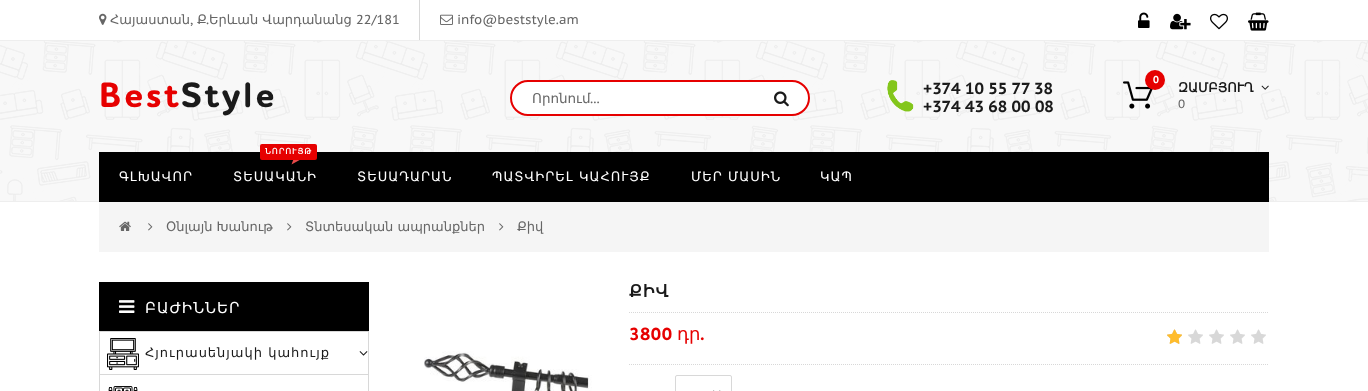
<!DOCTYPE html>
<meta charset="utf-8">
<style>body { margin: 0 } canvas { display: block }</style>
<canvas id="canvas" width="1368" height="391"></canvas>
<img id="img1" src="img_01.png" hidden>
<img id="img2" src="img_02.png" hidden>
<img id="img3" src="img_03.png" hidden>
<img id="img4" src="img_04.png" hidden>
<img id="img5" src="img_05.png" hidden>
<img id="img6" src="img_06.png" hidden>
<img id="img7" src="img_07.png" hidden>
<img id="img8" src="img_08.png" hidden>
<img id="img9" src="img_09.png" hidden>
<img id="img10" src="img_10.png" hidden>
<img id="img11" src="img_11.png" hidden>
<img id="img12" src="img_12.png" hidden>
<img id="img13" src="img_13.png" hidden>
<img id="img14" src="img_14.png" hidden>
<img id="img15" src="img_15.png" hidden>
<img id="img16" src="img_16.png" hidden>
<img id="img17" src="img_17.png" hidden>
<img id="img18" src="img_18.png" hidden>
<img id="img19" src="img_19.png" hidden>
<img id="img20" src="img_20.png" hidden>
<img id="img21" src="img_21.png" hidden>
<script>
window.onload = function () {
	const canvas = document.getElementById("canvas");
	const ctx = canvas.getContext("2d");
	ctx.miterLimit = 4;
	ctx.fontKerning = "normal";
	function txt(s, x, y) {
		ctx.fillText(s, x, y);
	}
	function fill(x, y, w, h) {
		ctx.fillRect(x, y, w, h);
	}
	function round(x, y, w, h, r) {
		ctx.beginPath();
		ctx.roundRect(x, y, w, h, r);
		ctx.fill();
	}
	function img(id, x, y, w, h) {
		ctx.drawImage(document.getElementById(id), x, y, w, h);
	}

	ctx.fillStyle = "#FFFFFF";
	fill(0, 0, 1368, 391);
	ctx.fillStyle = "#EEEEEE";
	fill(0, 40, 1368, 1);
	img("img1", 99, 13, 8, 12);
	ctx.fillStyle = "#D8D8D8";
	fill(419, 0, 1, 40);
	img("img2", 440, 14, 13, 11);
	img("img3", 1138, 12, 12, 16);
	img("img4", 1170, 13, 21, 17);
	img("img5", 1210, 13, 18, 17);
	img("img6", 1248, 12, 21, 19);
	img("img7", 0, 41, 1368, 160);
	ctx.fillStyle = "#EEEEEE";
	fill(0, 201, 1368, 1);
	ctx.fillStyle = "#FFFFFF";
	ctx.beginPath();
	ctx.roundRect(511, 81, 298, 34, 17);
	ctx.fill();
	ctx.strokeStyle = "#E60000";
	ctx.lineWidth = 2;
	ctx.stroke();
	img("img8", 774, 91, 15, 16);
	img("img9", 887, 80, 27, 32);
	img("img10", 1123, 81, 30, 28);
	ctx.fillStyle = "#E60000";
	ctx.beginPath();
	ctx.arc(1155, 80, 10, 0, Math.PI * 2);
	ctx.fill();
	img("img11", 1261, 85, 8, 5);
	ctx.fillStyle = "#000000";
	fill(99, 152, 1170, 50);
	ctx.fillStyle = "#E94949";
	ctx.beginPath();
	ctx.moveTo(308.5, 147.5);
	ctx.lineTo(305, 157);
	ctx.lineTo(291.5, 164.5);
	ctx.lineTo(295, 155);
	ctx.closePath();
	ctx.fill();
	ctx.fillStyle = "#E60000";
	round(260, 144, 57, 16, 2);
	ctx.fillStyle = "#F5F5F5";
	fill(99, 202, 1170, 50);
	img("img12", 119, 221, 12, 10);
	img("img13", 148, 223, 5, 8);
	img("img13", 287, 223, 5, 8);
	img("img13", 499, 223, 5, 8);
	ctx.fillStyle = "#000000";
	fill(99, 282, 270, 49);
	img("img14", 119, 300, 16, 13);
	ctx.strokeStyle = "#D8D8D8";
	ctx.lineWidth = 1;
	ctx.strokeRect(99.5, 331.5, 269, 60);
	ctx.fillStyle = "#D8D8D8";
	fill(100, 374, 268, 1);
	img("img15", 107, 338, 32, 32);
	img("img16", 359, 351, 9, 5);
	img("img17", 108, 386, 30, 5);
	ctx.beginPath();
	ctx.moveTo(629, 312.5);
	ctx.lineTo(1269, 312.5);
	ctx.setLineDash([1, 1]);
	ctx.stroke();
	ctx.beginPath();
	ctx.moveTo(629, 364.5);
	ctx.lineTo(1269, 364.5);
	ctx.stroke();
	img("img18", 1167, 329, 99, 15);
	img("img19", 1167, 329, 15, 15);
	img("img20", 713, 390, 8, 1);
	ctx.beginPath();
	ctx.roundRect(675.5, 375.5, 56, 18, 1.5);
	ctx.setLineDash([]);
	ctx.stroke();
	img("img21", 424, 351, 168, 40);
	ctx.font = "13px DejaVu Sans";
	ctx.fillStyle = "#666666";
	txt("Հայաստան", 110, 24);
	ctx.font = "13px PT Sans Caption";
	txt(",", 190, 24);
	ctx.font = "13px DejaVu Sans";
	txt("Ք", 197, 24);
	ctx.font = "13px PT Sans Caption";
	txt(".", 206, 24);
	ctx.font = "13px DejaVu Sans";
	txt("Երևան Վարդանանց", 209, 24);
	ctx.font = "13px PT Sans Caption";
	txt("22/181", 356, 24);
	txt("info@beststyle.am", 457, 24);
	ctx.letterSpacing = "3px";
	ctx.font = "bold 36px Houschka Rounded";
	ctx.fillStyle = "#E60000";
	txt("Best", 99, 107);
	ctx.fillStyle = "#1A1A1A";
	txt("Style", 181, 107);
	ctx.letterSpacing = "0px";
	ctx.font = "13.5px DejaVu Sans";
	ctx.fillStyle = "#666666";
	txt("Որոնում", 532, 103);
	ctx.font = "13.5px PT Sans Caption";
	txt("...", 590, 103);
	ctx.font = "bold 16px PT Sans Caption";
	ctx.fillStyle = "#1A1A1A";
	txt("+374 10 55 77 38", 923, 94);
	txt("+374 43 68 00 08", 923, 112);
	ctx.font = "bold 10px PT Sans Caption";
	ctx.fillStyle = "#FFFFFF";
	txt("0", 1153, 83);
	ctx.font = "bold 13px DejaVu Sans";
	ctx.fillStyle = "#1A1A1A";
	txt("ԶԱՄԲՅՈՒՂ", 1178, 92);
	ctx.font = "12px PT Sans Caption";
	ctx.fillStyle = "#666666";
	txt("0", 1178, 108);
	ctx.letterSpacing = "1px";
	ctx.font = "13px DejaVu Sans";
	ctx.fillStyle = "#FFFFFF";
	txt("ԳԼԽԱՎՈՐ", 119, 181);
	ctx.font = "bold 8px DejaVu Sans";
	txt("ՆՈՐՈՒՅԹ", 265, 154);
	ctx.font = "13px DejaVu Sans";
	txt("ՏԵՍԱԿԱՆԻ", 233, 181);
	txt("ՏԵՍԱԴԱՐԱՆ", 357, 181);
	txt("ՊԱՏՎԻՐԵԼ ԿԱՀՈՒՅՔ", 492, 181);
	txt("ՄԵՐ ՄԱՍԻՆ", 691, 181);
	txt("ԿԱՊ", 820, 181);
	ctx.letterSpacing = "0px";
	ctx.fillStyle = "#666666";
	txt("Օնլայն Խանութ", 166, 231);
	txt("Տնտեսական ապրանքներ", 305, 231);
	txt("Քիվ", 517, 231);
	ctx.letterSpacing = "1px";
	ctx.font = "15px DejaVu Sans";
	ctx.fillStyle = "#FFFFFF";
	txt("ԲԱԺԻՆՆԵՐ", 145, 313);
	ctx.font = "13px DejaVu Sans";
	ctx.fillStyle = "#1A1A1A";
	txt("Հյուրասենյակի կահույք", 145, 357);
	ctx.font = "bold 17px DejaVu Sans";
	txt("ՔԻՎ", 629, 297);
	ctx.letterSpacing = "0px";
	ctx.font = "bold 18px Houschka Rounded";
	ctx.fillStyle = "#E60000";
	txt("3800", 629, 340);
	ctx.font = "18px DejaVu Sans";
	txt("դր", 677, 340);
	ctx.font = "bold 18px Houschka Rounded";
	txt(".", 700, 340);
};
</script>
